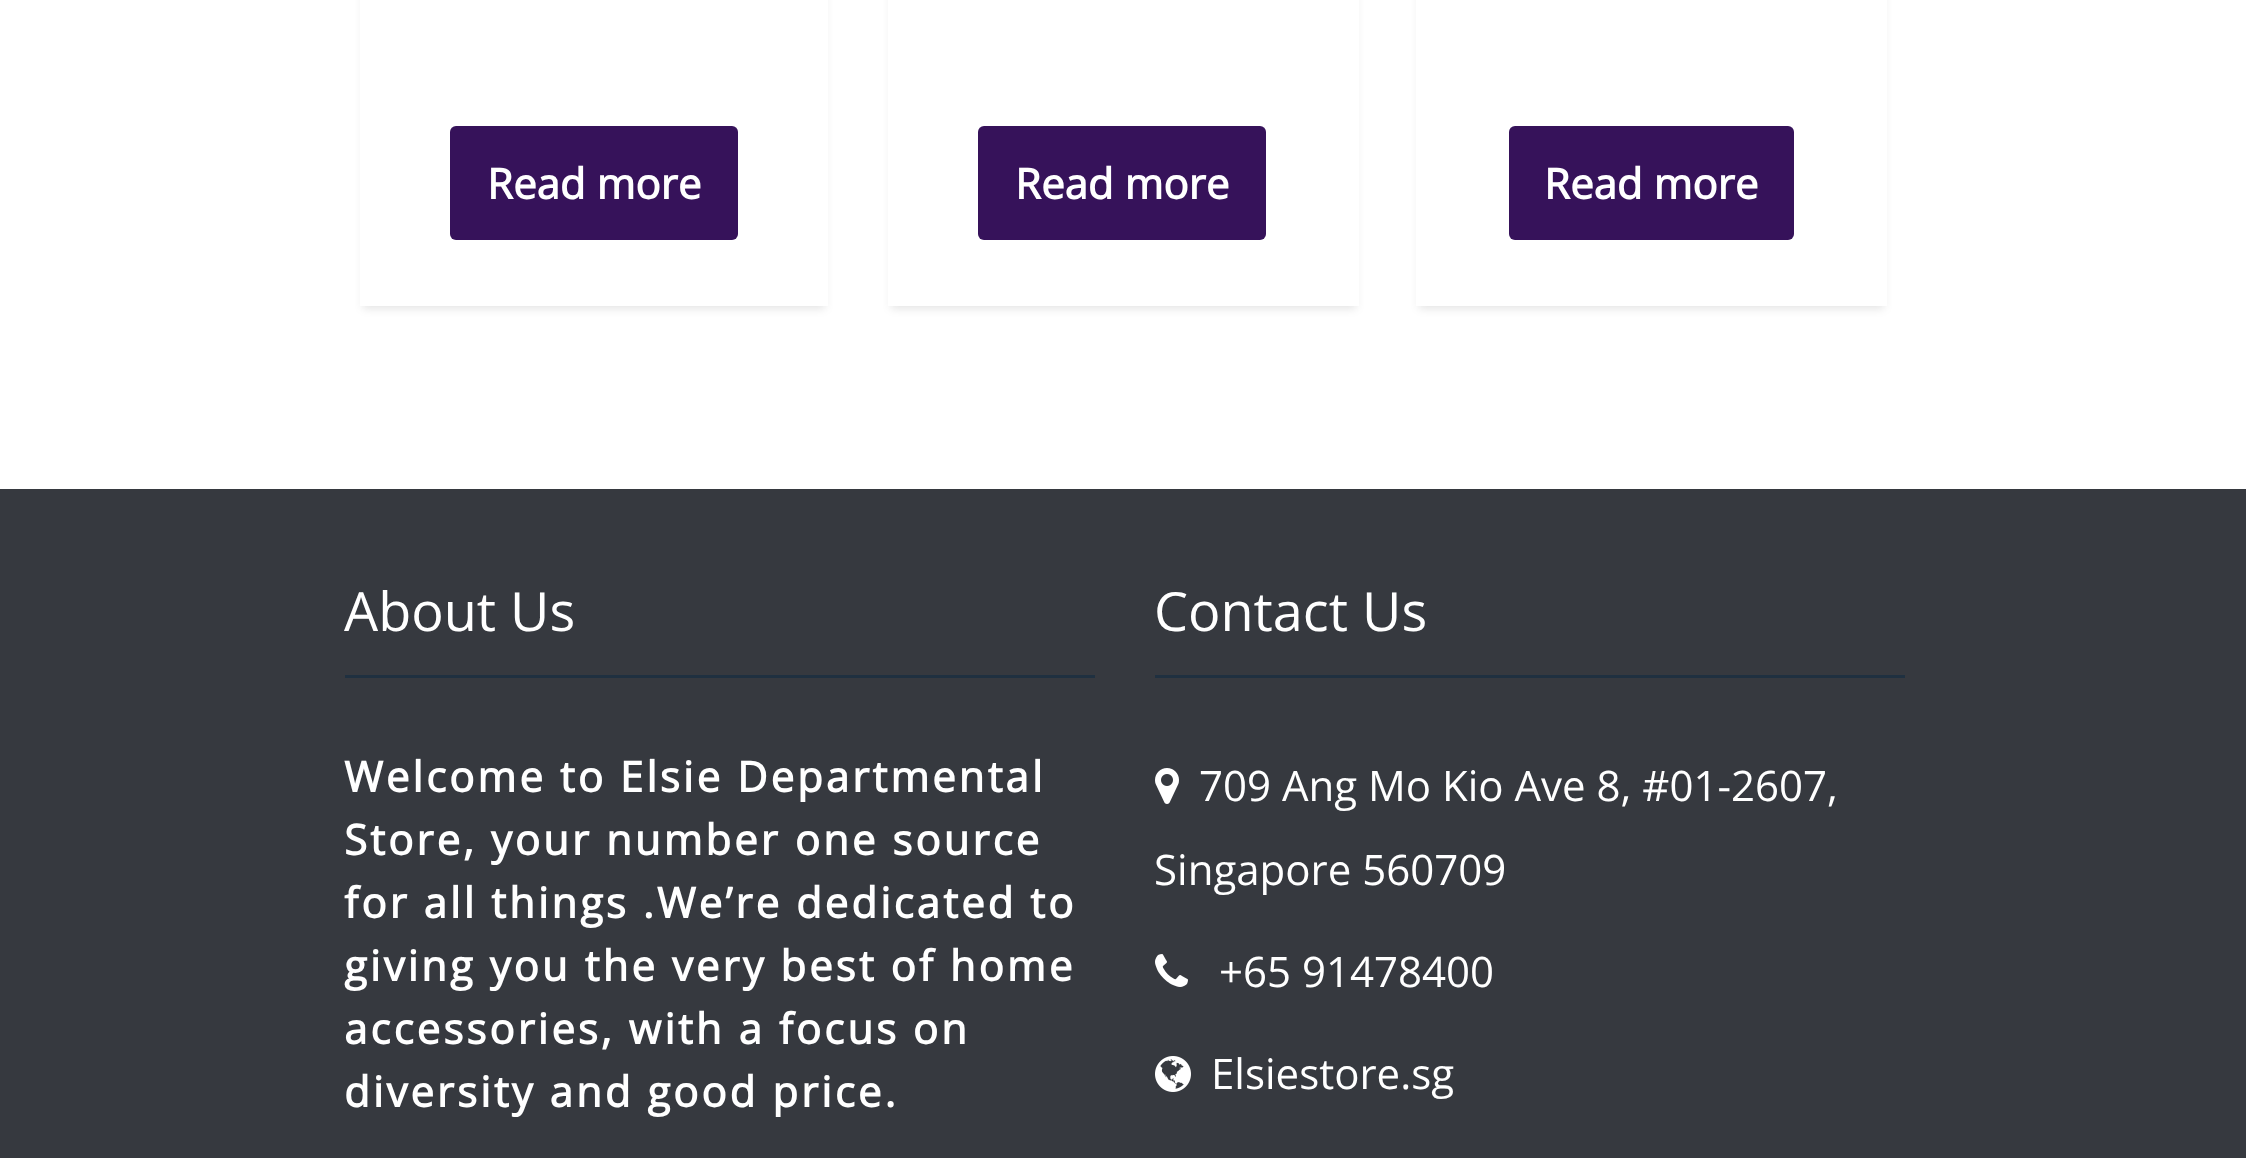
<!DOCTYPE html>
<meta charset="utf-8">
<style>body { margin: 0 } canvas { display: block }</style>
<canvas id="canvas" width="2246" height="1158"></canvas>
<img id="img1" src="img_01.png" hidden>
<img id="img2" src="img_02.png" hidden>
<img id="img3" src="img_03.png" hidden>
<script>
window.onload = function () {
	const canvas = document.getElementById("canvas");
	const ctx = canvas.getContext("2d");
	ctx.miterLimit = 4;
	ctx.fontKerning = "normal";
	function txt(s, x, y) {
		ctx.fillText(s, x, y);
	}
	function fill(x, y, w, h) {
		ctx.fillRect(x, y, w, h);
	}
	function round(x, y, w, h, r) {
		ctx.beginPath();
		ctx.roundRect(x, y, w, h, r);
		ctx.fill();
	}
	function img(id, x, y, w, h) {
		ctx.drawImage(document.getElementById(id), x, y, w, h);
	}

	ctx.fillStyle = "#FFFFFF";
	fill(0, 0, 2246, 1158);
	ctx.save();
	ctx.beginPath();
	ctx.moveTo(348, 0);
	ctx.lineTo(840, 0);
	ctx.lineTo(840, 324);
	ctx.lineTo(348, 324);
	ctx.closePath();
	ctx.moveTo(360, -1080);
	ctx.lineTo(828, -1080);
	ctx.lineTo(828, 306);
	ctx.lineTo(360, 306);
	ctx.closePath();
	ctx.clip("evenodd");
	ctx.fillStyle = "rgba(0, 0, 0, 0.1)";
	ctx.filter = "blur(4.5px)";
	ctx.beginPath();
	ctx.rect(363, -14, 462, 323);
	ctx.fill();
	ctx.filter = "none";
	ctx.restore();
	ctx.fillStyle = "#36125A";
	round(450, 126, 288, 114, 6);
	ctx.save();
	ctx.beginPath();
	ctx.moveTo(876, 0);
	ctx.lineTo(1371, 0);
	ctx.lineTo(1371, 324);
	ctx.lineTo(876, 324);
	ctx.closePath();
	ctx.moveTo(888, -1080);
	ctx.lineTo(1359, -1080);
	ctx.lineTo(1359, 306);
	ctx.lineTo(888, 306);
	ctx.closePath();
	ctx.clip("evenodd");
	ctx.fillStyle = "rgba(0, 0, 0, 0.1)";
	ctx.filter = "blur(4.5px)";
	ctx.beginPath();
	ctx.rect(891, -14, 465, 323);
	ctx.fill();
	ctx.filter = "none";
	ctx.restore();
	round(978, 126, 288, 114, 6);
	ctx.save();
	ctx.beginPath();
	ctx.moveTo(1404, 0);
	ctx.lineTo(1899, 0);
	ctx.lineTo(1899, 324);
	ctx.lineTo(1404, 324);
	ctx.closePath();
	ctx.moveTo(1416, -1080);
	ctx.lineTo(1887, -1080);
	ctx.lineTo(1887, 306);
	ctx.lineTo(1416, 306);
	ctx.closePath();
	ctx.clip("evenodd");
	ctx.fillStyle = "rgba(0, 0, 0, 0.1)";
	ctx.filter = "blur(4.5px)";
	ctx.beginPath();
	ctx.rect(1419, -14, 465, 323);
	ctx.fill();
	ctx.filter = "none";
	ctx.restore();
	round(1509, 126, 285, 114, 6);
	ctx.fillStyle = "#36393F";
	fill(0, 489, 2246, 669);
	ctx.fillStyle = "#1F3040";
	fill(345, 675, 750, 3);
	fill(1155, 675, 750, 3);
	img("img1", 1155, 768, 24, 36);
	img("img2", 1155, 954, 33, 33);
	img("img3", 1155, 1056, 36, 36);
	ctx.font = "bold 42px Open Sans";
	ctx.fillStyle = "#FFFFFF";
	txt("Read more", 487, 199);
	txt("Read more", 1015, 199);
	txt("Read more", 1544, 199);
	ctx.font = "54px Open Sans";
	txt("About Us", 344, 631);
	ctx.letterSpacing = "3px";
	ctx.font = "bold 42px Open Sans";
	txt("Welcome to Elsie Departmental", 344, 792);
	txt("Store, your number one source", 344, 855);
	txt("for all things .We’re dedicated to", 344, 918);
	txt("giving you the very best of home", 344, 981);
	txt("accessories, with a focus on", 344, 1044);
	txt("diversity and good price.", 344, 1107);
	ctx.letterSpacing = "0px";
	ctx.font = "54px Open Sans";
	txt("Contact Us", 1154, 631);
	ctx.font = "42px Open Sans";
	txt("709 Ang Mo Kio Ave 8, #01-2607,", 1199, 801);
	txt("Singapore 560709", 1154, 885);
	txt("+65 91478400", 1219, 987);
	txt("Elsiestore.sg", 1211, 1089);
};
</script>
